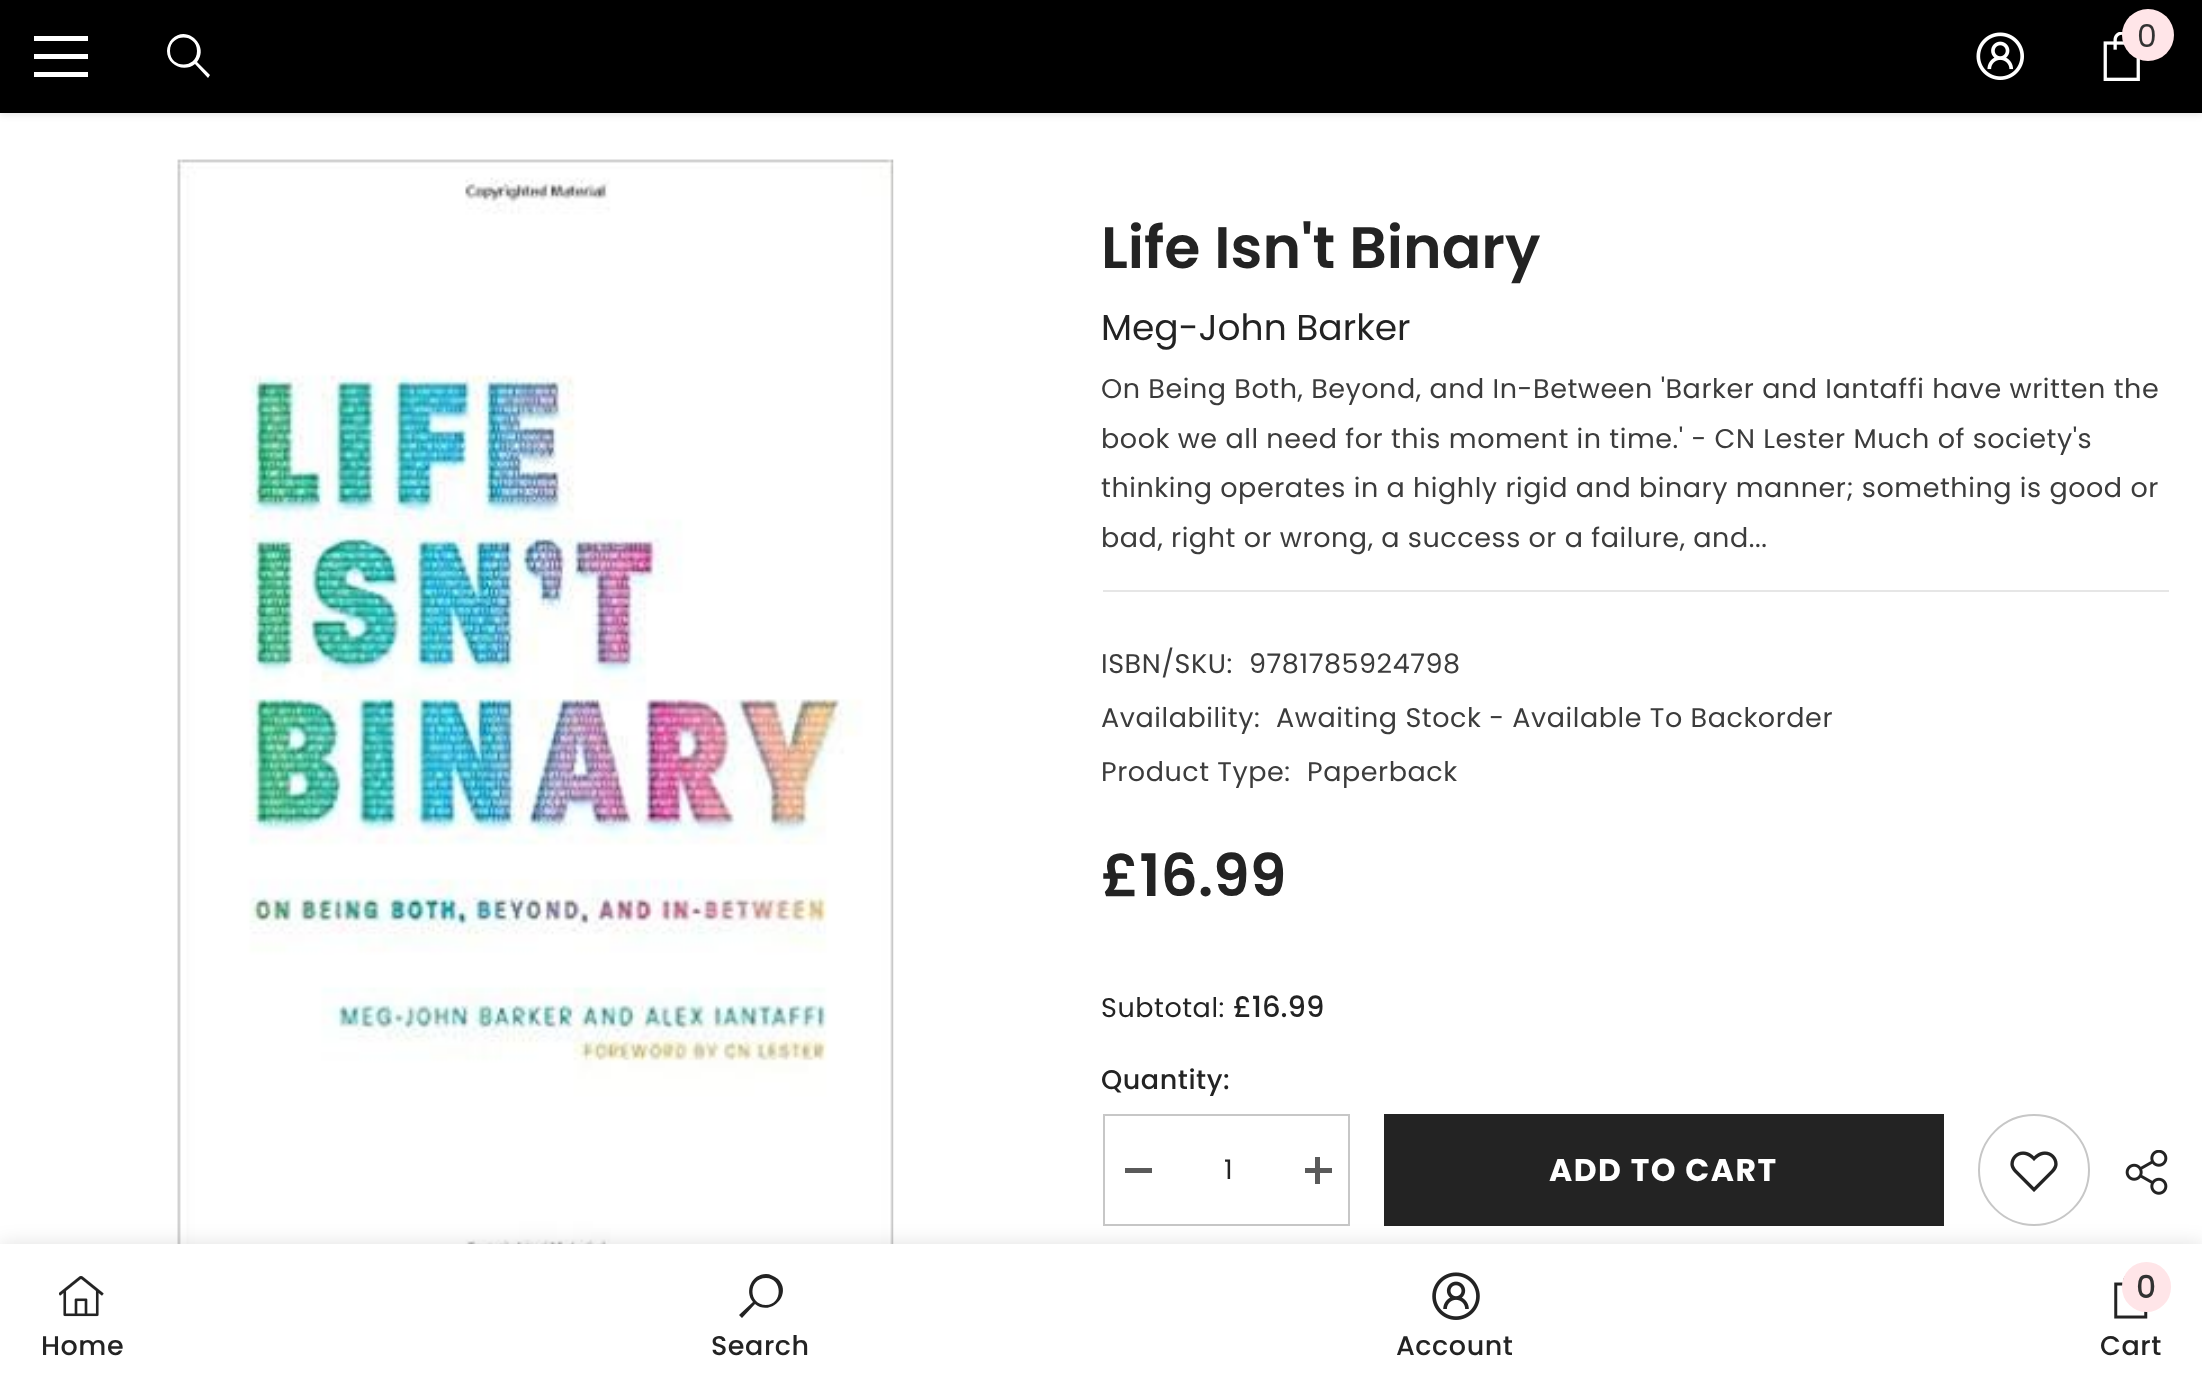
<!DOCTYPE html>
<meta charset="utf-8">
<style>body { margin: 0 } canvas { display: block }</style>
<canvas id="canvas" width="2202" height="1382"></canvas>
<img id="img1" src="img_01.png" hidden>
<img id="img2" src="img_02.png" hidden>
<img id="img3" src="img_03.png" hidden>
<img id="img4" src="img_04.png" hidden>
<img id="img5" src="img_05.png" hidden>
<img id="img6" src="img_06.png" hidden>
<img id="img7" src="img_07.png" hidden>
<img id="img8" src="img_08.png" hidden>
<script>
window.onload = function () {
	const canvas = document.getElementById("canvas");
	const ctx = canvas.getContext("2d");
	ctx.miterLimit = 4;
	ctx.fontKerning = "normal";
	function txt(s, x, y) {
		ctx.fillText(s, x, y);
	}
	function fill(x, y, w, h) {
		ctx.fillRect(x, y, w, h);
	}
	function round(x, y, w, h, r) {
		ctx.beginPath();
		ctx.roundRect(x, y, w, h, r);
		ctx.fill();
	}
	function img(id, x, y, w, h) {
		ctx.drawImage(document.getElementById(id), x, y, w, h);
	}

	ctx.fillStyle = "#FFFFFF";
	fill(0, 0, 2202, 1382);
	ctx.fillStyle = "rgba(0, 0, 0, 0.1)";
	ctx.filter = "blur(3.5px)";
	ctx.beginPath();
	ctx.rect(0, 2, 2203, 113);
	ctx.fill();
	ctx.filter = "none";
	ctx.fillStyle = "#000000";
	fill(0, 0, 2202, 113);
	ctx.fillStyle = "#FFFFFF";
	fill(34, 54, 54, 5);
	fill(34, 36, 54, 5);
	fill(34, 72, 54, 5);
	ctx.beginPath();
	ctx.moveTo(167, 51);
	ctx.bezierCurveTo(167, 65, 184, 73, 195, 64);
	ctx.lineTo(208, 78);
	ctx.lineTo(210, 75);
	ctx.lineTo(197, 62);
	ctx.bezierCurveTo(210, 46, 187, 24, 172, 39);
	ctx.bezierCurveTo(169, 42, 167, 47, 167, 51);
	ctx.closePath();
	ctx.moveTo(170, 51);
	ctx.bezierCurveTo(170, 33, 197, 33, 197, 51);
	ctx.bezierCurveTo(197, 69, 170, 69, 170, 51);
	ctx.closePath();
	ctx.fill();
	img("img1", 1976, 32, 48, 48);
	img("img2", 2103, 32, 37, 49);
	ctx.fillStyle = "#FFE5E8";
	ctx.beginPath();
	ctx.arc(2148, 35, 26, 0, Math.PI * 2);
	ctx.fill();
	img("img3", 177, 159, 717, 1085);
	ctx.fillStyle = "#E6E6E6";
	fill(1103, 590, 1066, 2);
	ctx.strokeStyle = "#C7C7C7";
	ctx.lineWidth = 2;
	ctx.strokeRect(1104, 1115, 245, 110);
	ctx.fillStyle = "#5A5A5A";
	fill(1125, 1168, 27, 5);
	fill(1305, 1168, 27, 5);
	fill(1315, 1157, 5, 27);
	ctx.fillStyle = "#232323";
	fill(1384, 1114, 560, 112);
	ctx.beginPath();
	ctx.arc(2034, 1170, 55, 0, Math.PI * 2);
	ctx.stroke();
	img("img4", 2010, 1151, 48, 41);
	img("img5", 2125, 1150, 43, 45);
	ctx.fillStyle = "rgba(0, 0, 0, 0.12)";
	ctx.filter = "blur(10px)";
	ctx.beginPath();
	ctx.rect(0, 1244, 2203, 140);
	ctx.fill();
	ctx.filter = "none";
	ctx.fillStyle = "#FFFFFF";
	fill(0, 1244, 2202, 138);
	img("img6", 59, 1276, 45, 41);
	ctx.fillStyle = "#232323";
	ctx.beginPath();
	ctx.moveTo(766, 1274);
	ctx.bezierCurveTo(752, 1274, 744, 1291, 753, 1302);
	ctx.lineTo(739, 1315);
	ctx.lineTo(742, 1318);
	ctx.lineTo(755, 1304);
	ctx.bezierCurveTo(771, 1317, 793, 1294, 778, 1279);
	ctx.bezierCurveTo(774, 1276, 770, 1274, 766, 1274);
	ctx.closePath();
	ctx.moveTo(766, 1278);
	ctx.bezierCurveTo(783, 1278, 783, 1305, 766, 1305);
	ctx.bezierCurveTo(748, 1305, 748, 1278, 766, 1278);
	ctx.closePath();
	ctx.fill();
	img("img7", 1432, 1272, 48, 48);
	img("img8", 2114, 1276, 34, 43);
	ctx.fillStyle = "#FFE5E8";
	round(2122, 1262, 49, 50, 24.5);
	ctx.letterSpacing = "0.55px";
	ctx.font = "31.5px Poppins";
	ctx.fillStyle = "#323232";
	txt("0", 2137, 47);
	ctx.letterSpacing = "0px";
	ctx.font = "600 58.5px Poppins";
	ctx.fillStyle = "#232323";
	txt("Life Isn't Binary", 1101, 268);
	ctx.font = "36px Poppins";
	txt("Meg-John Barker", 1101, 340);
	ctx.letterSpacing = "0.55px";
	ctx.font = "27px Poppins";
	ctx.fillStyle = "#3C3C3C";
	txt("On Being Both, Beyond, and In-Between 'Barker and Iantaffi have written the", 1101, 398);
	txt("book we all need for this moment in time.' - CN Lester Much of society's", 1101, 448);
	txt("thinking operates in a highly rigid and binary manner; something is good or", 1101, 497);
	txt("bad, right or wrong, a success or a failure, and...", 1101, 547);
	txt("ISBN/SKU:", 1101, 673);
	txt("9781785924798", 1249, 673);
	txt("Availability:", 1101, 727);
	txt("Awaiting Stock - Available To Backorder", 1276, 727);
	txt("Product Type:", 1101, 781);
	txt("Paperback", 1307, 781);
	ctx.letterSpacing = "0px";
	ctx.font = "600 58.5px Poppins";
	ctx.fillStyle = "#232323";
	txt("£16.99", 1101, 896);
	ctx.letterSpacing = "0.55px";
	ctx.font = "27px Poppins";
	txt("Subtotal:", 1101, 1017);
	ctx.letterSpacing = "0px";
	ctx.font = "500 29px Poppins";
	txt("£16.99", 1233, 1017);
	ctx.letterSpacing = "0.55px";
	ctx.font = "500 27px Poppins";
	txt("Quantity:", 1101, 1089);
	ctx.font = "27px Poppins";
	txt("1", 1224, 1179);
	ctx.letterSpacing = "1.5px";
	ctx.font = "bold 31.5px Poppins";
	ctx.fillStyle = "#FFFFFF";
	txt("ADD TO CART", 1549, 1181);
	ctx.letterSpacing = "0.55px";
	ctx.font = "500 27px Poppins";
	ctx.fillStyle = "#232323";
	txt("Home", 41, 1355);
	txt("Search", 711, 1355);
	txt("Account", 1396, 1355);
	ctx.font = "500 31.5px Poppins";
	ctx.fillStyle = "#323232";
	txt("0", 2136, 1298);
	ctx.font = "500 27px Poppins";
	ctx.fillStyle = "#232323";
	txt("Cart", 2100, 1355);
};
</script>
